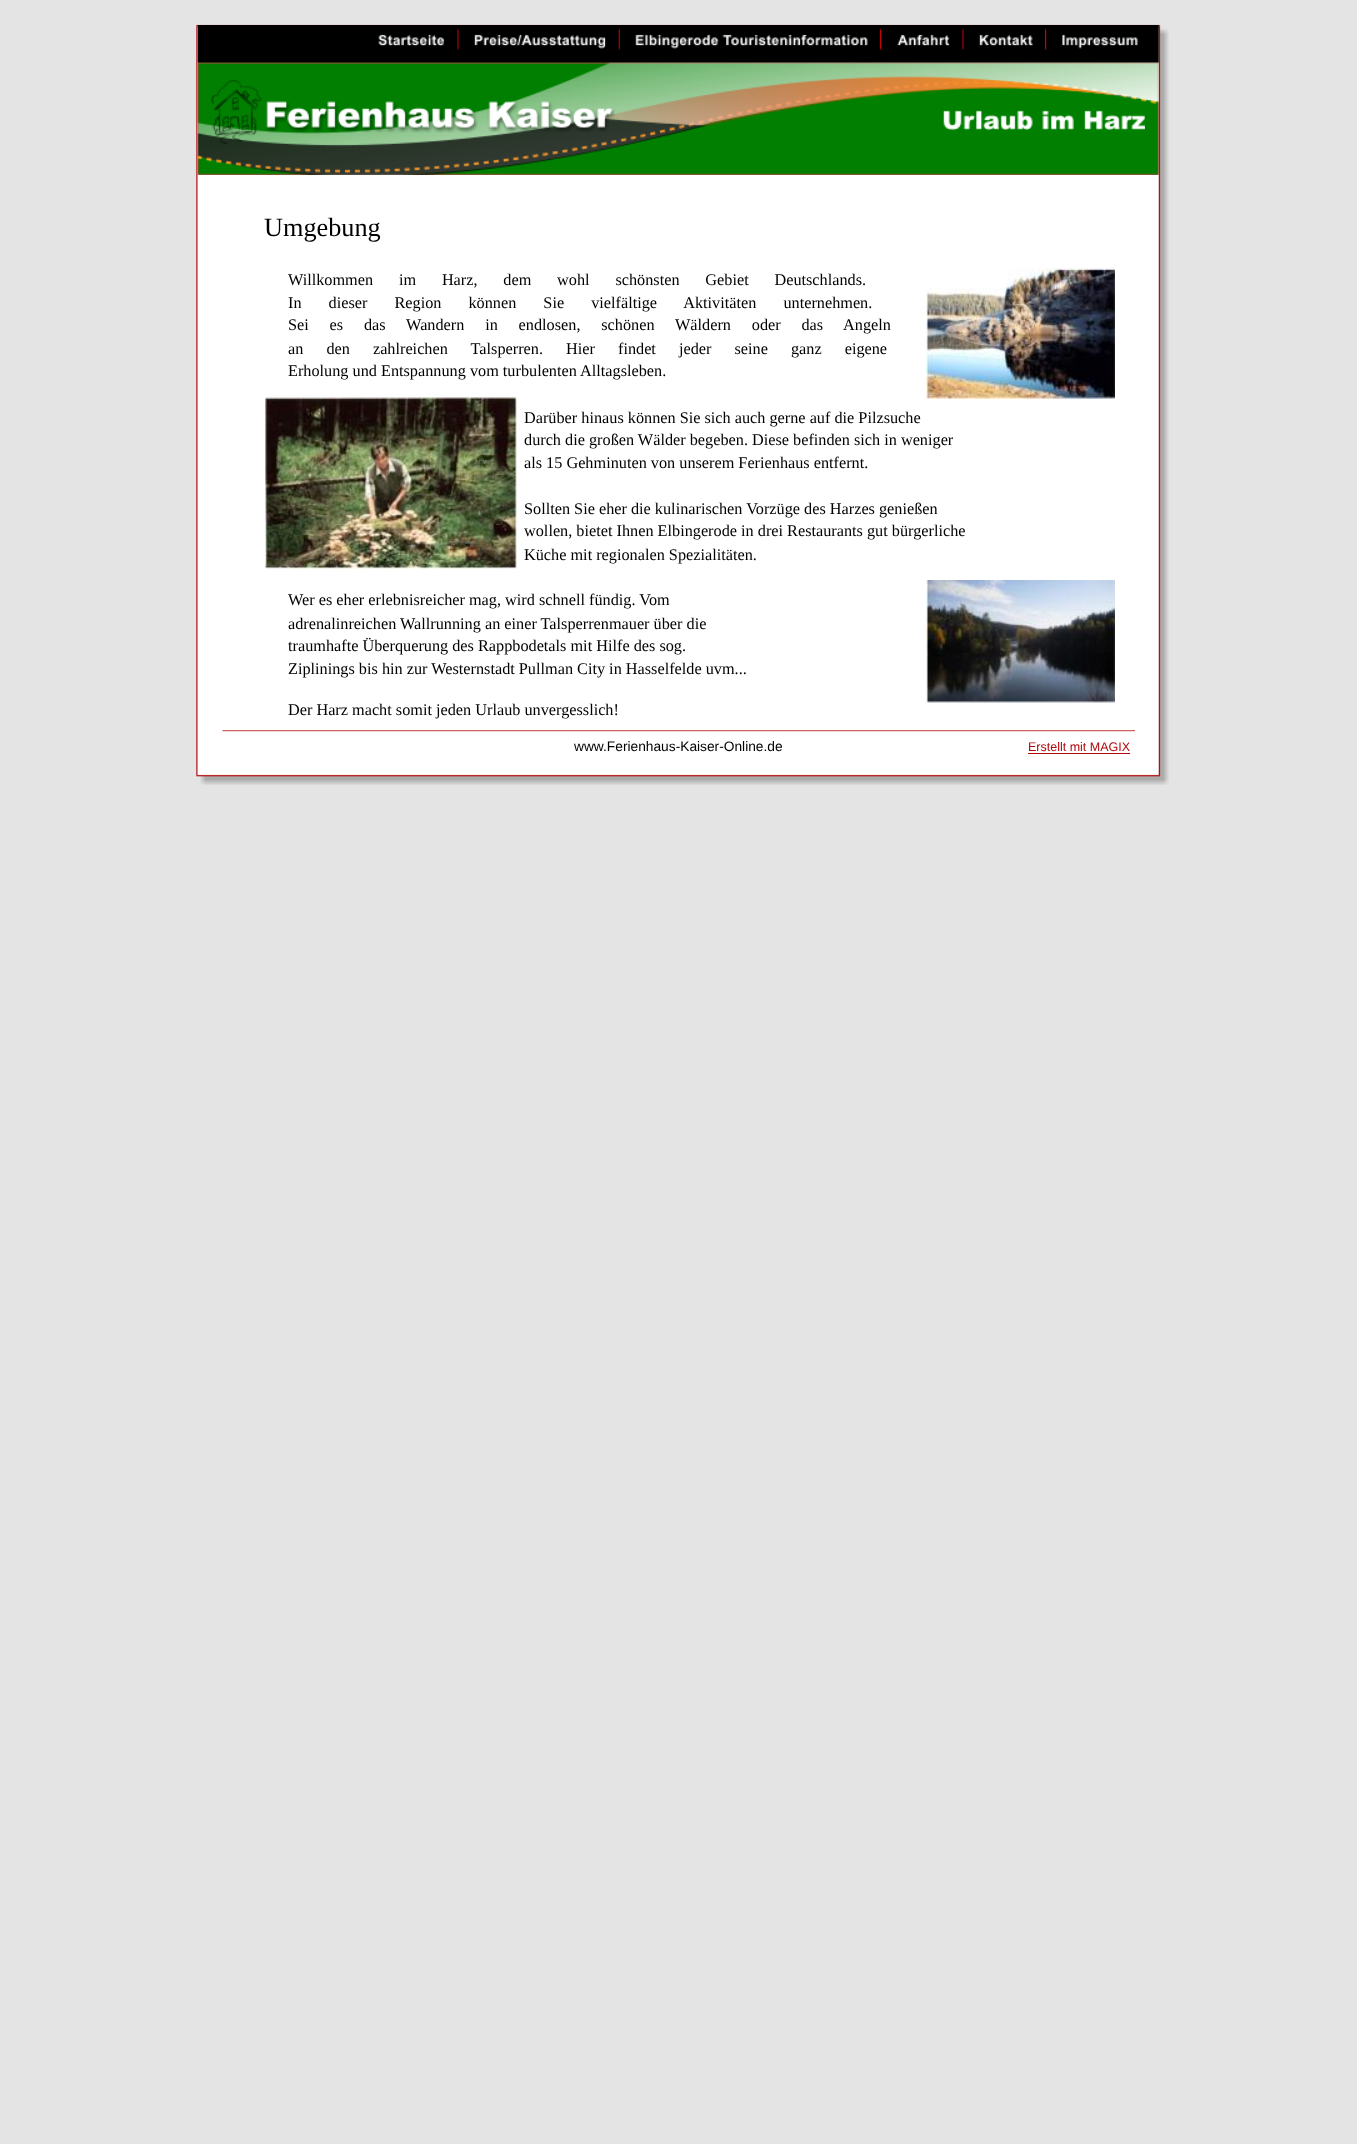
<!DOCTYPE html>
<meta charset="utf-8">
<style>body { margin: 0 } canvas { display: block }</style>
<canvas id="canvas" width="1357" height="2144"></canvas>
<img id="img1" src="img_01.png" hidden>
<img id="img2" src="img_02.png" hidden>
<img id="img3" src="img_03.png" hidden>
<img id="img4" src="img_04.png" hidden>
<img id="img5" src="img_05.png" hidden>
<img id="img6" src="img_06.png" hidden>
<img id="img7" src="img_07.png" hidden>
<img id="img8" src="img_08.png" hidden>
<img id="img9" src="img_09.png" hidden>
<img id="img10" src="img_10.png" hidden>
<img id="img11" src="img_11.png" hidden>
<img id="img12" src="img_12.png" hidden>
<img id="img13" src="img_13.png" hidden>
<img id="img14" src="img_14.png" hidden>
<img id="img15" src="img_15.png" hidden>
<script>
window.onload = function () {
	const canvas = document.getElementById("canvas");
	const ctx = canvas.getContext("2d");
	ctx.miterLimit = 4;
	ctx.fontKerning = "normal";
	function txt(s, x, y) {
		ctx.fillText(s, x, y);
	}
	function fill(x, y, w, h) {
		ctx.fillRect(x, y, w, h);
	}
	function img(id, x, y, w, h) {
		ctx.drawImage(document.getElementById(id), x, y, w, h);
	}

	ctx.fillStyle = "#E4E4E4";
	fill(0, 0, 1357, 2144);
	img("img1", 196, 24, 973, 761);
	img("img2", 197, 25, 962, 150);
	img("img3", 378, 28, 81, 23);
	img("img4", 457, 28, 163, 23);
	img("img5", 619, 28, 263, 23);
	img("img6", 881, 28, 83, 23);
	img("img7", 962, 28, 85, 23);
	img("img8", 1046, 29, 92, 21);
	img("img9", 211, 80, 51, 64);
	img("img10", 266, 101, 349, 32);
	img("img11", 943, 110, 202, 20);
	img("img12", 926, 268, 189, 131);
	img("img13", 265, 397, 252, 172);
	img("img14", 926, 580, 189, 123);
	img("img15", 222, 730, 913, 2);
	ctx.fillStyle = "#B2080B";
	fill(1028, 753, 102, 1);
	ctx.font = "26.25px Liberation Serif";
	ctx.fillStyle = "#000000";
	txt("Umgebung", 264, 236);
	ctx.wordSpacing = "21.75px";
	ctx.font = "16.25px Liberation Serif";
	txt("Willkommen im Harz, dem wohl schönsten Gebiet Deutschlands.", 288, 285);
	ctx.wordSpacing = "23px";
	txt("In dieser Region können Sie vielfältige Aktivitäten unternehmen.", 288, 308);
	ctx.wordSpacing = "16.75px";
	txt("Sei es das Wandern in endlosen, schönen Wäldern oder das Angeln", 288, 330);
	ctx.wordSpacing = "19px";
	txt("an den zahlreichen Talsperren. Hier findet jeder seine ganz eigene", 288, 354);
	ctx.wordSpacing = "0px";
	txt("Erholung und Entspannung vom turbulenten Alltagsleben.", 288, 376);
	txt("Darüber hinaus können Sie sich auch gerne auf die Pilzsuche", 524, 423);
	txt("durch die großen Wälder begeben. Diese befinden sich in weniger", 524, 445);
	txt("als 15 Gehminuten von unserem Ferienhaus entfernt.", 524, 468);
	txt("Sollten Sie eher die kulinarischen Vorzüge des Harzes genießen", 524, 514);
	txt("wollen, bietet Ihnen Elbingerode in drei Restaurants gut bürgerliche", 524, 536);
	txt("Küche mit regionalen Spezialitäten.", 524, 560);
	txt("Wer es eher erlebnisreicher mag, wird schnell fündig. Vom", 288, 605);
	txt("adrenalinreichen Wallrunning an einer Talsperrenmauer über die", 288, 629);
	txt("traumhafte Überquerung des Rappbodetals mit Hilfe des sog.", 288, 651);
	txt("Ziplinings bis hin zur Westernstadt Pullman City in Hasselfelde uvm...", 288, 674);
	txt("Der Harz macht somit jeden Urlaub unvergesslich!", 288, 715);
	ctx.font = "13.75px Liberation Sans";
	txt("www.Ferienhaus-Kaiser-Online.de", 574, 751);
	ctx.font = "12.5px Liberation Sans";
	ctx.fillStyle = "#B2080B";
	txt("Erstellt mit MAGIX", 1028, 751);
};
</script>
